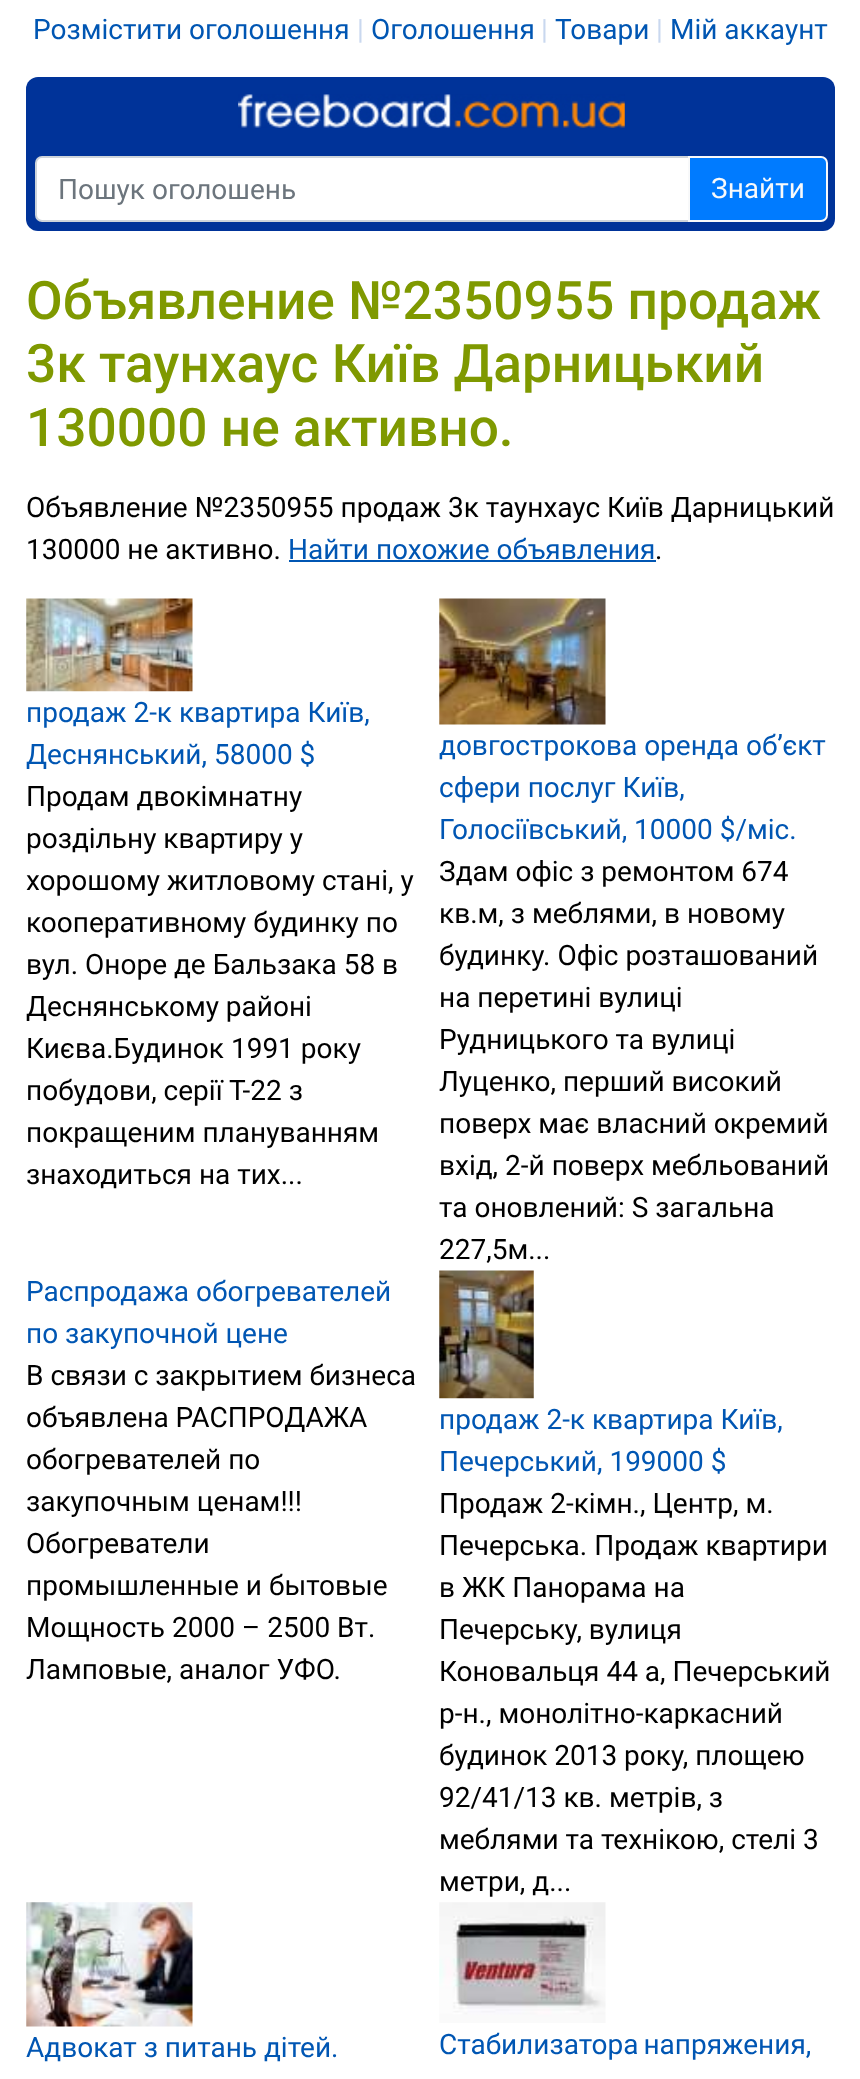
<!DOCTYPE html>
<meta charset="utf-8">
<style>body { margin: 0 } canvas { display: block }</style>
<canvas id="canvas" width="860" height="2079"></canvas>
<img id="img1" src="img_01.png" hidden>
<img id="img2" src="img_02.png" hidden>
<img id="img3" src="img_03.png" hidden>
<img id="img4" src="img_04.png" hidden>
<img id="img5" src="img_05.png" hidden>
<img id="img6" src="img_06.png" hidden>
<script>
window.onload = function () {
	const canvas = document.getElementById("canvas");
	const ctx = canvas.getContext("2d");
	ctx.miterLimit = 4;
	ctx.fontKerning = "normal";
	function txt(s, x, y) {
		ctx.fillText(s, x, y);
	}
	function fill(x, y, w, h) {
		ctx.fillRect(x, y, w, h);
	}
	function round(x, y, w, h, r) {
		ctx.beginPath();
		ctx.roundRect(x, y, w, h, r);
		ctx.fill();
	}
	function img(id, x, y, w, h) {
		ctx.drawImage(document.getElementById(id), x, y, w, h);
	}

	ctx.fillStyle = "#FFFFFF";
	fill(0, 0, 860, 2079);
	ctx.fillStyle = "#003399";
	round(26, 77, 809, 154, 12);
	img("img1", 238, 94, 387, 34);
	ctx.fillStyle = "#FFFFFF";
	ctx.beginPath();
	ctx.roundRect(36, 157, 653, 64, [6, 0, 0, 6]);
	ctx.fill();
	ctx.strokeStyle = "#CED4DA";
	ctx.lineWidth = 2;
	ctx.stroke();
	ctx.fillStyle = "#007BFF";
	ctx.beginPath();
	ctx.roundRect(689, 157, 138, 64, [0, 6, 6, 0]);
	ctx.fill();
	ctx.strokeStyle = "#F8F9FA";
	ctx.stroke();
	ctx.fillStyle = "#0056B3";
	fill(289, 560, 367, 2);
	img("img2", 26, 598, 167, 94);
	img("img3", 439, 598, 167, 127);
	img("img4", 439, 1270, 95, 129);
	img("img5", 26, 1902, 167, 125);
	img("img6", 439, 1902, 167, 121);
	ctx.font = "28px Roboto";
	txt("Розмістити оголошення", 33, 39);
	ctx.fillStyle = "#C9D8EF";
	txt("|", 357, 39);
	ctx.fillStyle = "#0056B3";
	txt("Оголошення", 371, 39);
	ctx.fillStyle = "#C9D8EF";
	txt("|", 541, 39);
	ctx.fillStyle = "#0056B3";
	txt("Товари", 555, 39);
	ctx.fillStyle = "#C9D8EF";
	txt("|", 656, 39);
	ctx.fillStyle = "#0056B3";
	txt("Мій аккаунт", 670, 39);
	ctx.fillStyle = "#6C757D";
	txt("Пошук оголошень", 58, 199);
	ctx.fillStyle = "#F8F9FA";
	txt("Знайти", 711, 198);
	ctx.font = "500 53.25px Roboto";
	ctx.fillStyle = "#7F9900";
	txt("Объявление №2350955 продаж", 26, 319);
	txt("3к таунхаус Київ Дарницький", 26, 382);
	txt("130000 не активно.", 26, 446);
	ctx.font = "28px Roboto";
	ctx.fillStyle = "#000000";
	txt("Объявление №2350955 продаж 3к таунхаус Київ Дарницький", 26, 517);
	txt("130000 не активно.", 26, 559);
	ctx.fillStyle = "#0056B3";
	txt("Найти похожие объявления", 288, 559);
	ctx.fillStyle = "#000000";
	txt(".", 655, 559);
	ctx.fillStyle = "#0056B3";
	txt("продаж 2-к квартира Київ,", 26, 722);
	txt("Деснянський, 58000 $", 26, 764);
	ctx.fillStyle = "#000000";
	txt("Продам двокімнатну", 26, 806);
	txt("роздільну квартиру у", 26, 848);
	txt("хорошому житловому стані, у", 26, 890);
	txt("кооперативному будинку по", 26, 932);
	txt("вул. Оноре де Бальзака 58 в", 26, 974);
	txt("Деснянському районі", 26, 1016);
	txt("Києва.Будинок 1991 року", 26, 1058);
	txt("побудови, серії Т-22 з", 26, 1100);
	txt("покращеним плануванням", 26, 1142);
	txt("знаходиться на тих...", 26, 1184);
	ctx.fillStyle = "#0056B3";
	txt("довгострокова оренда об’єкт", 439, 755);
	txt("сфери послуг Київ,", 439, 797);
	txt("Голосіївський, 10000 $/міс.", 439, 839);
	ctx.fillStyle = "#000000";
	txt("Здам офіс з ремонтом 674", 439, 881);
	txt("кв.м, з меблями, в новому", 439, 923);
	txt("будинку. Офіс розташований", 439, 965);
	txt("на перетині вулиці", 439, 1007);
	txt("Рудницького та вулиці", 439, 1049);
	txt("Луценко, перший високий", 439, 1091);
	txt("поверх має власний окремий", 439, 1133);
	txt("вхід, 2-й поверх мебльований", 439, 1175);
	txt("та оновлений: S загальна", 439, 1217);
	txt("227,5м...", 439, 1259);
	ctx.fillStyle = "#0056B3";
	txt("Распродажа обогревателей", 26, 1301);
	txt("по закупочной цене", 26, 1343);
	ctx.fillStyle = "#000000";
	txt("В связи с закрытием бизнеса", 26, 1385);
	txt("объявлена РАСПРОДАЖА", 26, 1427);
	txt("обогревателей по", 26, 1469);
	txt("закупочным ценам!!!", 26, 1511);
	txt("Обогреватели", 26, 1553);
	txt("промышленные и бытовые", 26, 1595);
	txt("Мощность 2000 – 2500 Вт.", 26, 1637);
	txt("Ламповые, аналог УФО.", 26, 1679);
	ctx.fillStyle = "#0056B3";
	txt("продаж 2-к квартира Київ,", 439, 1429);
	txt("Печерський, 199000 $", 439, 1471);
	ctx.fillStyle = "#000000";
	txt("Продаж 2-кімн., Центр, м.", 439, 1513);
	txt("Печерська. Продаж квартири", 439, 1555);
	txt("в ЖК Панорама на", 439, 1597);
	txt("Печерську, вулиця", 439, 1639);
	txt("Коновальця 44 а, Печерський", 439, 1681);
	txt("р-н., монолітно-каркасний", 439, 1723);
	txt("будинок 2013 року, площею", 439, 1765);
	txt("92/41/13 кв. метрів, з", 439, 1807);
	txt("меблями та технікою, стелі 3", 439, 1849);
	txt("метри, д...", 439, 1891);
	ctx.fillStyle = "#0056B3";
	txt("Адвокат з питань дітей.", 26, 2057);
	ctx.wordSpacing = "-2px";
	txt("Cтабилизатора напряжения,", 439, 2054);
};
</script>
